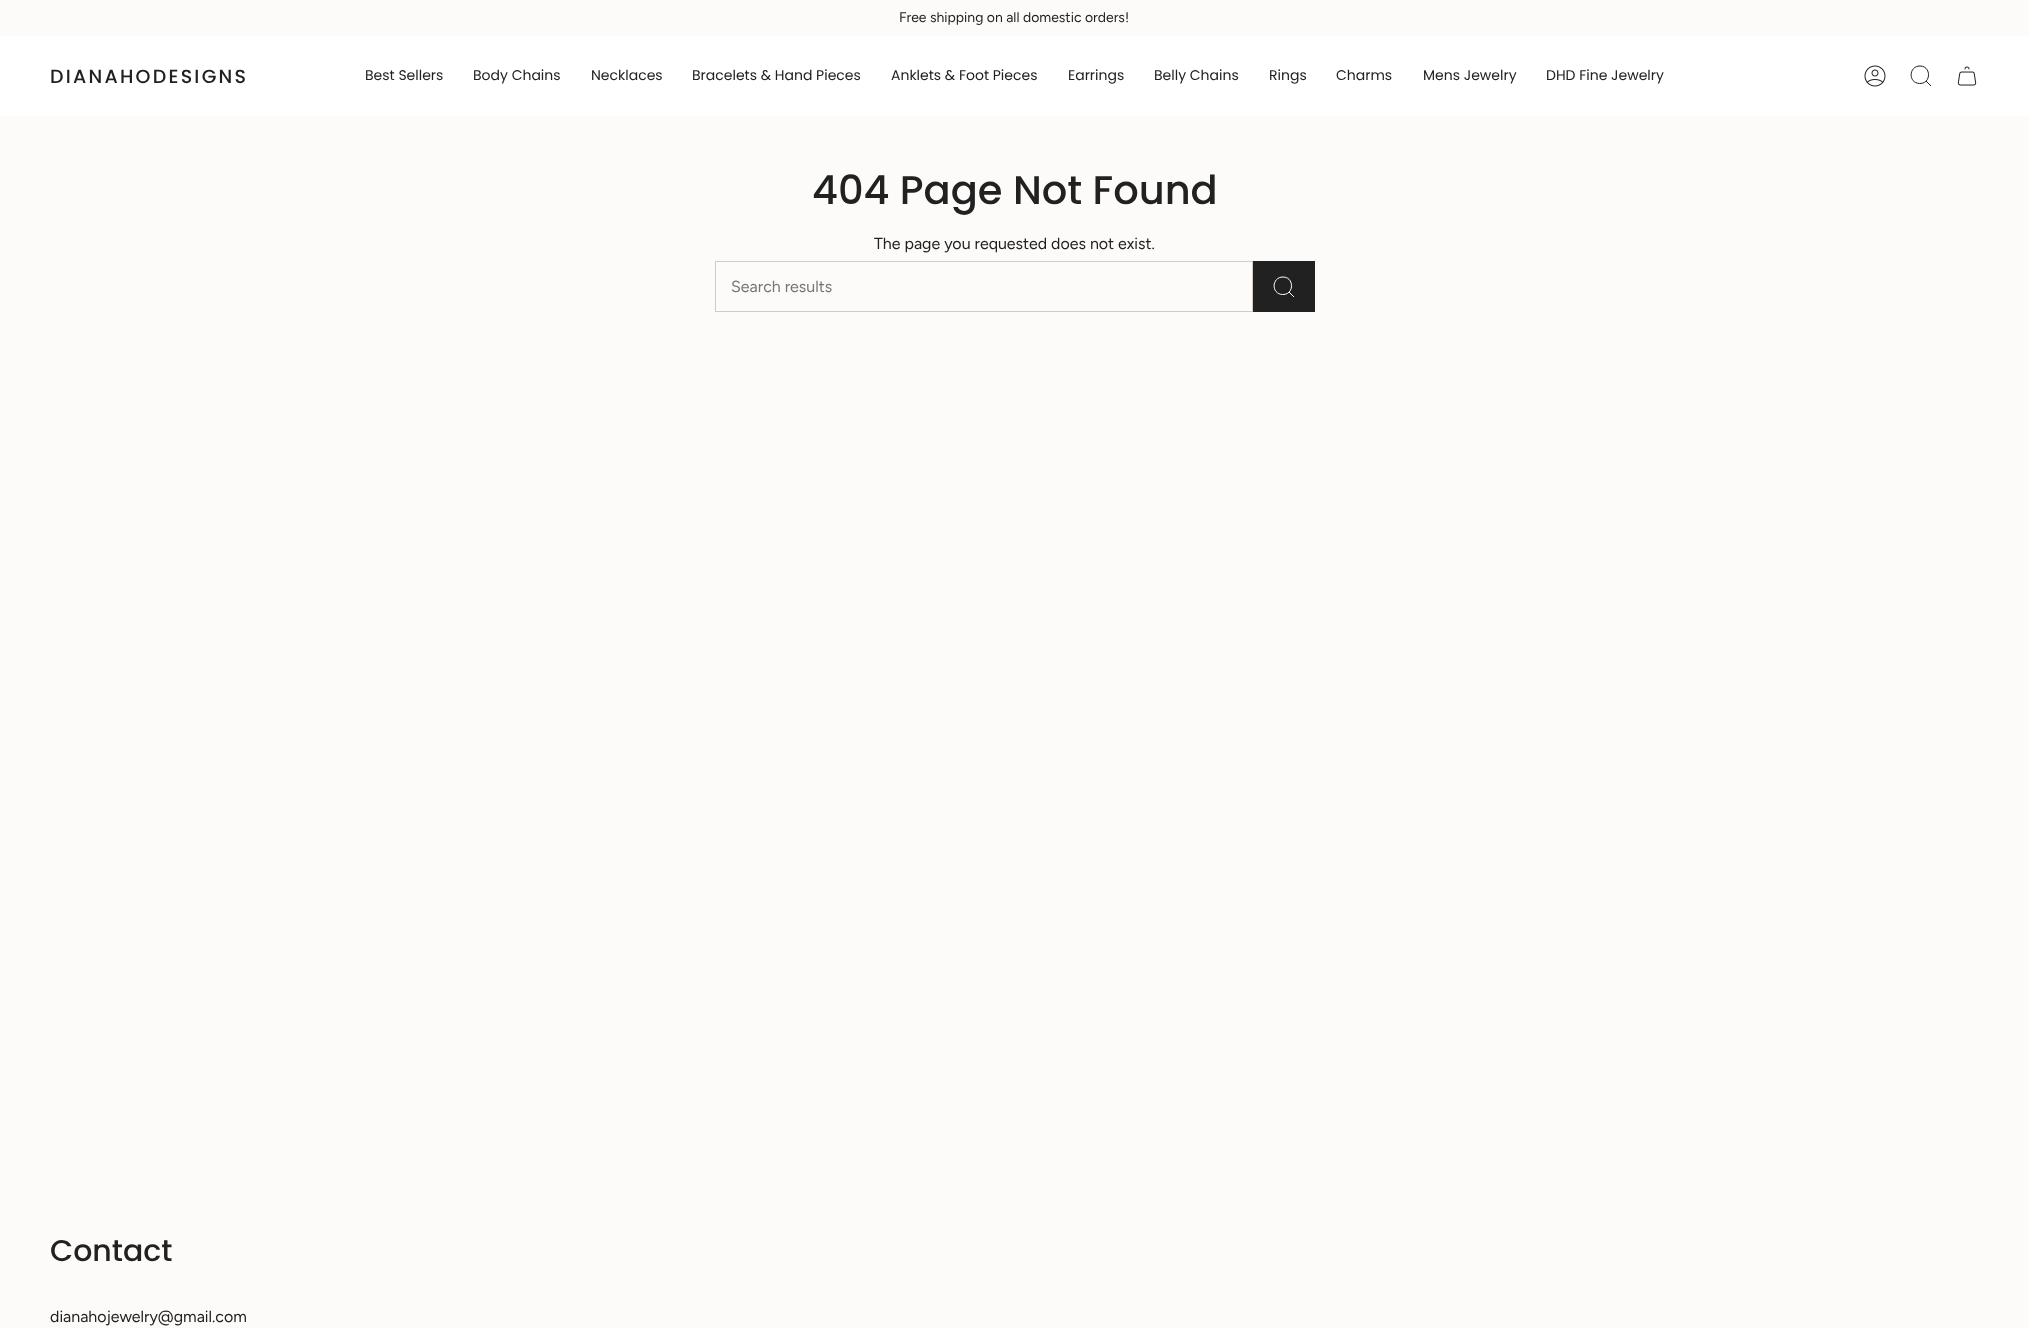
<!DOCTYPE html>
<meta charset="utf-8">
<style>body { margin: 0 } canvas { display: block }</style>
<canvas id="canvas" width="2029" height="1328"></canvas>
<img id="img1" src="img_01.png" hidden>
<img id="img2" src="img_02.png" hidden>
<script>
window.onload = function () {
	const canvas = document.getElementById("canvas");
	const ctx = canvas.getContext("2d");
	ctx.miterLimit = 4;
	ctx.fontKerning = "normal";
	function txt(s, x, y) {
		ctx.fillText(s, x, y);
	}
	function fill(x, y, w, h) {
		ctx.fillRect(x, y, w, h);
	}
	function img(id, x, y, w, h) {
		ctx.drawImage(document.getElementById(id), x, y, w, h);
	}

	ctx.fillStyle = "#FCFBF9";
	fill(0, 0, 2029, 1328);
	ctx.fillStyle = "#FFFFFF";
	fill(0, 36, 2029, 80);
	img("img1", 1864, 65, 22, 22);
	ctx.beginPath();
	ctx.moveTo(1920, 66);
	ctx.bezierCurveTo(1931.5, 66, 1931.5, 84, 1919.5, 83.5);
	ctx.bezierCurveTo(1908, 83, 1908.5, 66, 1920, 66);
	ctx.closePath();
	ctx.moveTo(1926, 81);
	ctx.lineTo(1931, 86);
	ctx.strokeStyle = "#212121";
	ctx.stroke();
	img("img2", 1957, 66, 20, 20);
	ctx.strokeStyle = "#D1CDC4";
	ctx.strokeRect(715.5, 261.5, 537, 50);
	ctx.fillStyle = "#212121";
	fill(1253, 261, 62, 51);
	ctx.beginPath();
	ctx.moveTo(1283, 277);
	ctx.bezierCurveTo(1294.5, 277, 1294.5, 295, 1282.5, 294.5);
	ctx.bezierCurveTo(1271, 294, 1271.5, 277, 1283, 277);
	ctx.closePath();
	ctx.moveTo(1289, 292);
	ctx.lineTo(1294, 297);
	ctx.strokeStyle = "#FFFFFF";
	ctx.stroke();
	ctx.font = "14px Figtree";
	txt("Free shipping on all domestic orders!", 899, 22);
	ctx.letterSpacing = "2.25px";
	ctx.font = "500 19px Poppins";
	txt("DIANAHODESIGNS", 50, 83);
	ctx.letterSpacing = "0px";
	ctx.font = "14px Poppins";
	txt("Best Sellers", 365, 80);
	txt("Body Chains", 473, 80);
	txt("Necklaces", 591, 80);
	txt("Bracelets & Hand Pieces", 692, 80);
	txt("Anklets & Foot Pieces", 891, 80);
	txt("Earrings", 1068, 80);
	txt("Belly Chains", 1154, 80);
	txt("Rings", 1269, 80);
	txt("Charms", 1336, 80);
	txt("Mens Jewelry", 1423, 80);
	txt("DHD Fine Jewelry", 1546, 80);
	ctx.font = "500 40px Poppins";
	txt("404 Page Not Found", 812, 204);
	ctx.font = "16px Figtree";
	txt("The page you requested does not exist.", 874, 249);
	ctx.fillStyle = "#757575";
	txt("Search results", 731, 292);
	ctx.font = "500 30px Poppins";
	ctx.fillStyle = "#212121";
	txt("Contact", 50, 1261);
	ctx.font = "16px Figtree";
	txt("dianahojewelry@gmail.com", 50, 1322);
};
</script>
